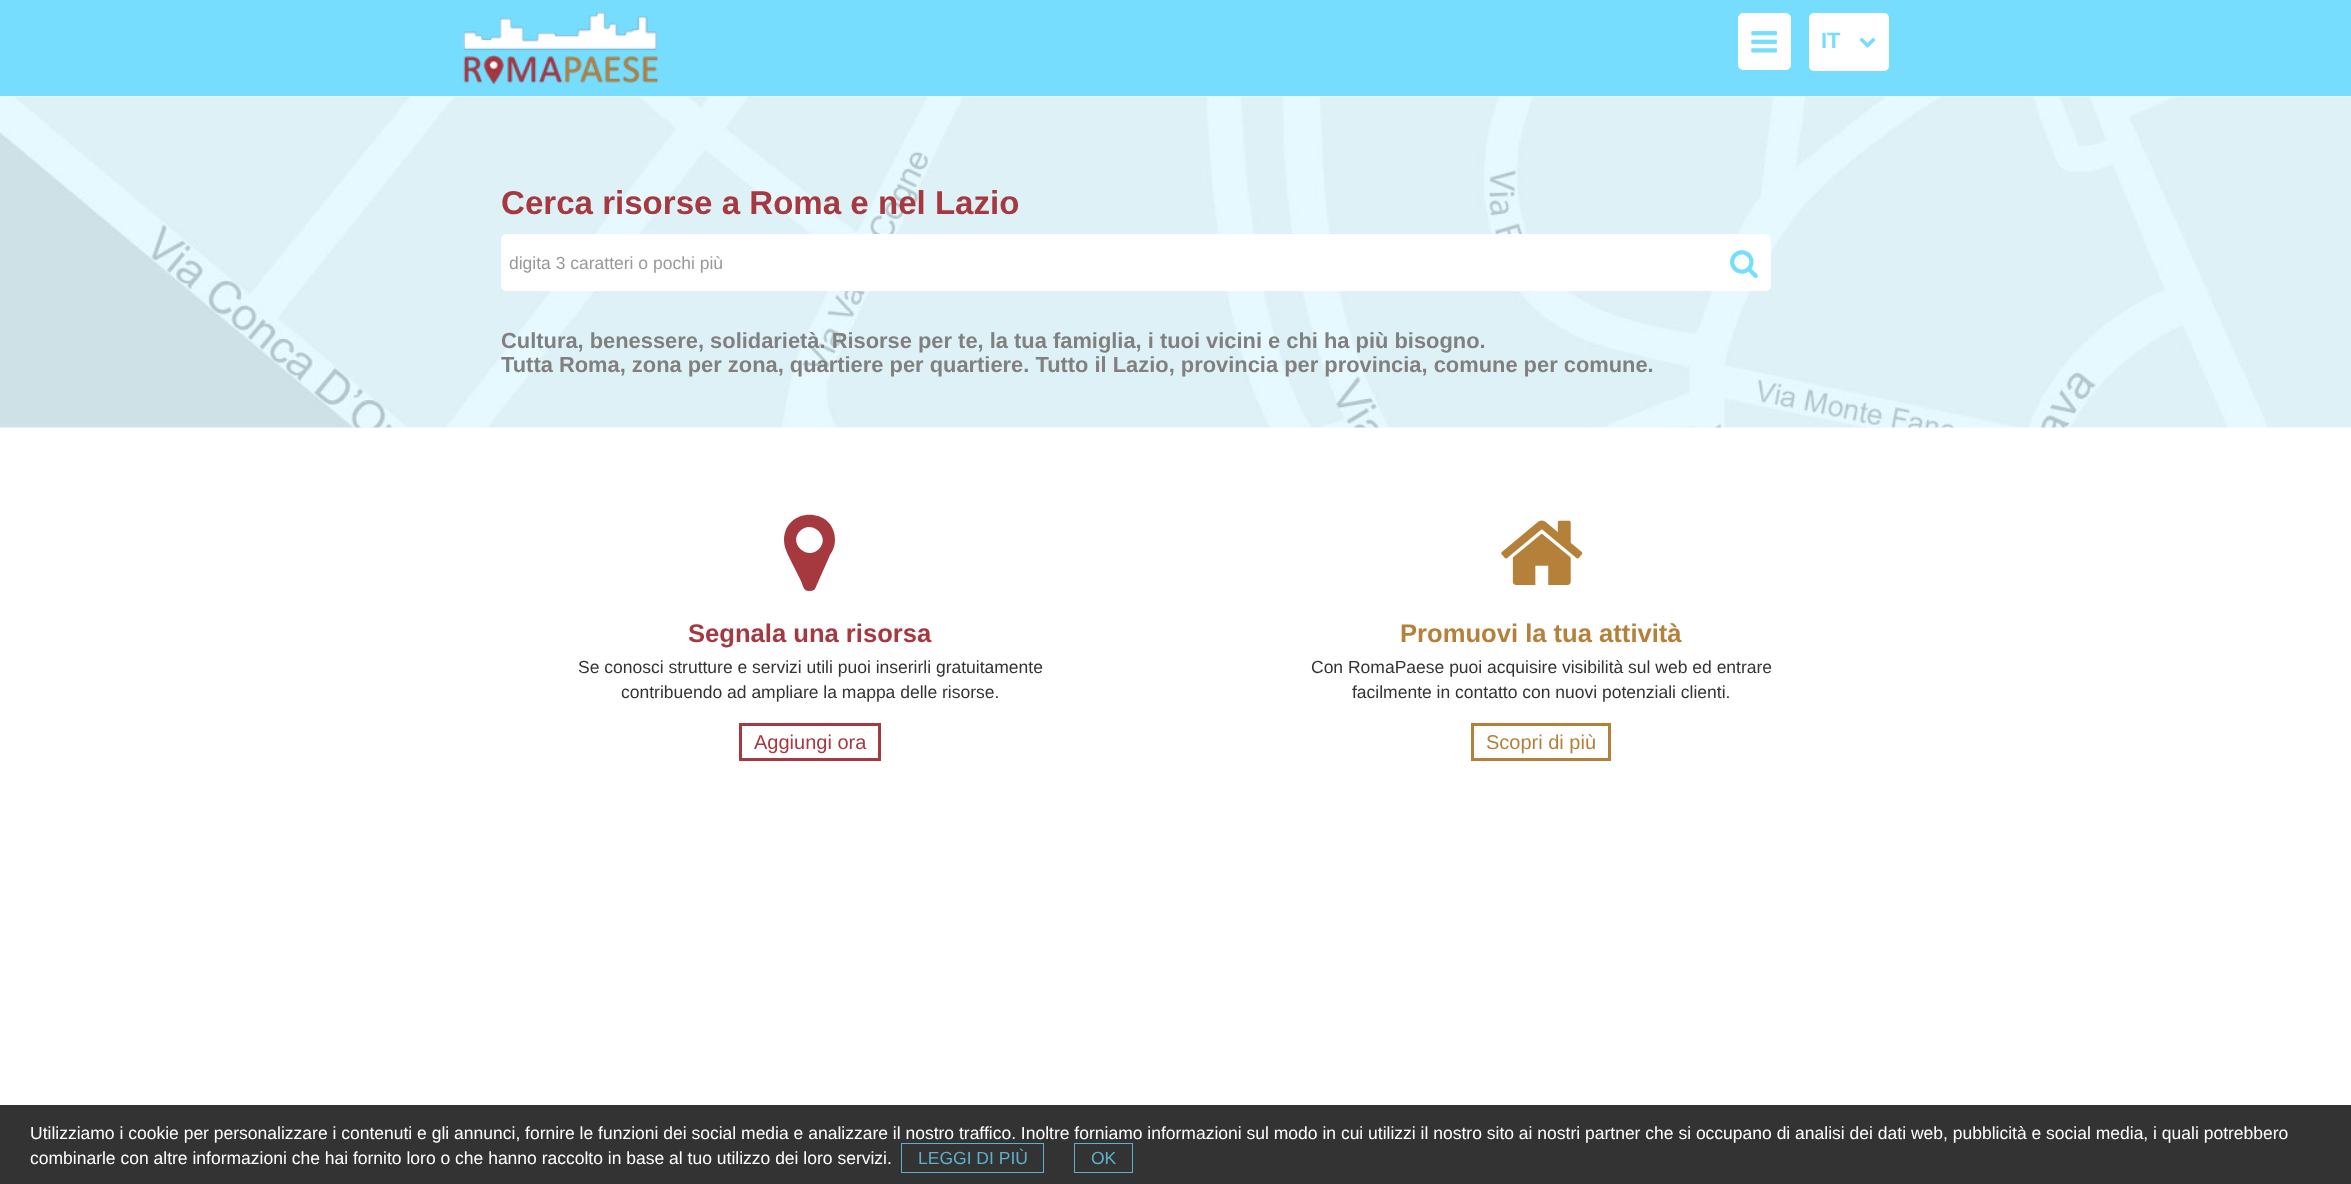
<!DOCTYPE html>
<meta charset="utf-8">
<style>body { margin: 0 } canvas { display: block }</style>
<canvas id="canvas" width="2351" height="1184"></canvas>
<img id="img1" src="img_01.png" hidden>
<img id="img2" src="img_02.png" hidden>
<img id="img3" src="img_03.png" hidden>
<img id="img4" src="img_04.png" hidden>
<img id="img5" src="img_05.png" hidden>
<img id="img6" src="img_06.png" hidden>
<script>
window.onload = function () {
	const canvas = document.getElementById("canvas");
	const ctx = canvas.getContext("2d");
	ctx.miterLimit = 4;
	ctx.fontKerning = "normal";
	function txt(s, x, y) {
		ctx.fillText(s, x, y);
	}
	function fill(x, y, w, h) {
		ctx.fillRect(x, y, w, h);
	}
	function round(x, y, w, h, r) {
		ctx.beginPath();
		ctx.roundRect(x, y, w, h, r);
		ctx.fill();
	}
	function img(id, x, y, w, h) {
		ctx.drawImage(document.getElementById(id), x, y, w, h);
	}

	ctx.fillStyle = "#FFFFFF";
	fill(0, 0, 2351, 1184);
	ctx.fillStyle = "#77DDFF";
	fill(0, 0, 2351, 96);
	img("img1", 463, 12, 195, 72);
	ctx.fillStyle = "#FFFFFF";
	ctx.beginPath();
	ctx.roundRect(1738.5, 13.5, 52, 56, 4.5);
	ctx.fill();
	ctx.strokeStyle = "#FFFFFF";
	ctx.stroke();
	img("img2", 1751, 31, 26, 22);
	round(1809, 13, 80, 58, 5);
	img("img3", 1859, 37, 17, 11);
	img("img4", 0, 96, 2351, 332);
	ctx.beginPath();
	ctx.roundRect(501.5, 234.5, 1214, 56, [4.5, 0, 0, 4.5]);
	ctx.fill();
	ctx.stroke();
	ctx.beginPath();
	ctx.roundRect(1716.5, 234.5, 54, 56, [0, 4.5, 4.5, 0]);
	ctx.fill();
	ctx.stroke();
	img("img5", 1730, 250, 28, 28);
	ctx.fillStyle = "#A63840";
	ctx.beginPath();
	ctx.moveTo(819, 549);
	ctx.bezierCurveTo(831, 537, 812, 519, 800, 531);
	ctx.bezierCurveTo(788, 543, 807, 561, 819, 549);
	ctx.closePath();
	ctx.moveTo(835, 540);
	ctx.bezierCurveTo(835, 546, 833, 550, 830, 555);
	ctx.lineTo(815, 589);
	ctx.bezierCurveTo(814, 590, 812, 591, 810, 591);
	ctx.bezierCurveTo(804, 592, 803, 586, 801, 581);
	ctx.lineTo(788, 555);
	ctx.bezierCurveTo(786, 550, 784, 546, 784, 540);
	ctx.bezierCurveTo(785, 506, 835, 507, 835, 540);
	ctx.closePath();
	ctx.fill();
	ctx.strokeStyle = "#A63840";
	ctx.lineWidth = 3;
	ctx.strokeRect(740.5, 724.5, 139, 35);
	img("img6", 1501, 520, 82, 65);
	ctx.strokeStyle = "#B5813A";
	ctx.strokeRect(1472.5, 724.5, 137, 35);
	ctx.fillStyle = "#333333";
	fill(0, 1105, 2351, 79);
	ctx.strokeStyle = "#5FB0CC";
	ctx.lineWidth = 1;
	ctx.strokeRect(901.5, 1143.5, 142, 29);
	ctx.strokeRect(1074.5, 1143.5, 58, 29);
	ctx.font = "bold 22px Liberation Sans";
	ctx.fillStyle = "#77DDFF";
	txt("IT", 1821, 48);
	ctx.font = "bold 33.1px Liberation Sans";
	ctx.fillStyle = "#A63840";
	txt("Cerca risorse a Roma e nel Lazio", 501, 214);
	ctx.font = "17.5px Liberation Sans";
	ctx.fillStyle = "#999999";
	txt("digita 3 caratteri o pochi più", 509, 269);
	ctx.font = "bold 21.88px Liberation Sans";
	ctx.fillStyle = "#808080";
	txt("Cultura, benessere, solidarietà. Risorse per te, la tua famiglia, i tuoi vicini e chi ha più bisogno.", 501, 348);
	txt("Tutta Roma, zona per zona, quartiere per quartiere. Tutto il Lazio, provincia per provincia, comune per comune.", 501, 372);
	ctx.font = "bold 25.6px Liberation Sans";
	ctx.fillStyle = "#A63840";
	txt("Segnala una risorsa", 688, 642);
	ctx.font = "17.5px Liberation Sans";
	ctx.fillStyle = "#333333";
	txt("Se conosci strutture e servizi utili puoi inserirli gratuitamente", 578, 673);
	txt("contribuendo ad ampliare la mappa delle risorse.", 621, 698);
	ctx.font = "20px Liberation Sans";
	ctx.fillStyle = "#A63840";
	txt("Aggiungi ora", 754, 749);
	ctx.font = "bold 25.6px Liberation Sans";
	ctx.fillStyle = "#B5813A";
	txt("Promuovi la tua attività", 1400, 642);
	ctx.font = "17.5px Liberation Sans";
	ctx.fillStyle = "#333333";
	txt("Con RomaPaese puoi acquisire visibilità sul web ed entrare", 1311, 673);
	txt("facilmente in contatto con nuovi potenziali clienti.", 1352, 698);
	ctx.font = "20px Liberation Sans";
	ctx.fillStyle = "#B5813A";
	txt("Scopri di più", 1486, 749);
	ctx.font = "17.5px Liberation Sans";
	ctx.fillStyle = "#FFFFFF";
	txt("Utilizziamo i cookie per personalizzare i contenuti e gli annunci, fornire le funzioni dei social media e analizzare il nostro traffico. Inoltre forniamo informazioni sul modo in cui utilizzi il nostro sito ai nostri partner che si occupano di analisi dei dati web, pubblicità e social media, i quali potrebbero", 30, 1139);
	txt("combinarle con altre informazioni che hai fornito loro o che hanno raccolto in base al tuo utilizzo dei loro servizi.", 30, 1164);
	ctx.fillStyle = "#5FB0CC";
	txt("LEGGI DI PIÙ", 918, 1164);
	txt("OK", 1091, 1164);
};
</script>
